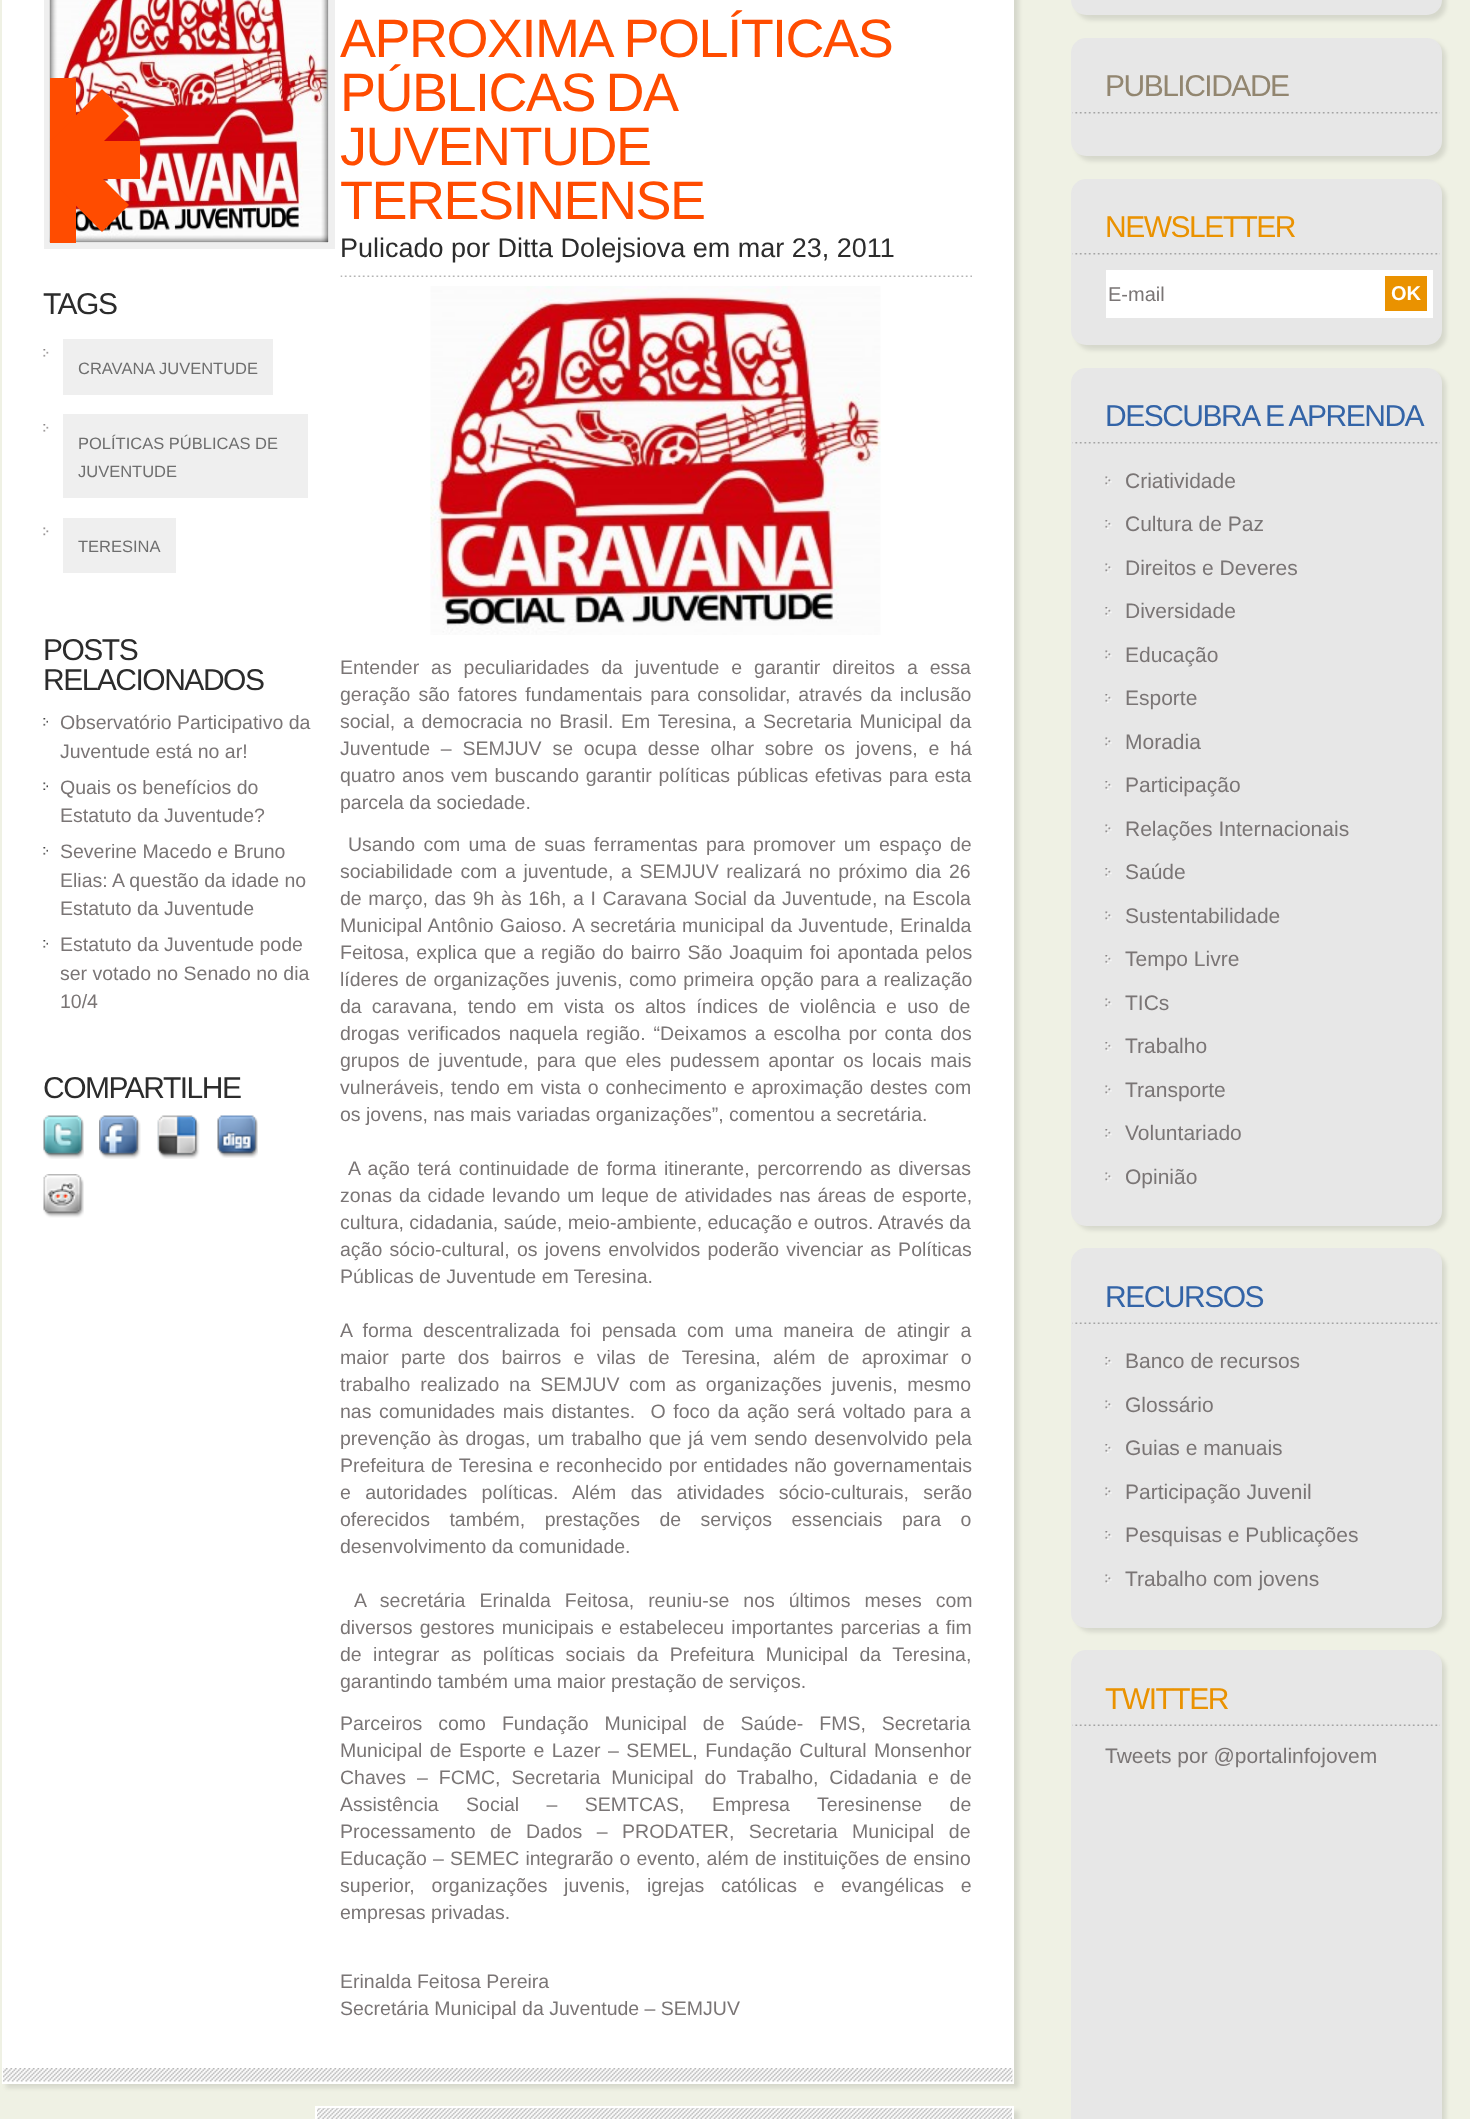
<!DOCTYPE html>
<meta charset="utf-8">
<style>body { margin: 0 } canvas { display: block }</style>
<canvas id="canvas" width="1470" height="2119"></canvas>
<img id="img1" src="img_01.png" hidden>
<img id="img2" src="img_02.png" hidden>
<img id="img3" src="img_03.png" hidden>
<img id="img4" src="img_04.png" hidden>
<img id="img5" src="img_05.png" hidden>
<img id="img6" src="img_06.png" hidden>
<img id="img7" src="img_07.png" hidden>
<img id="img8" src="img_08.png" hidden>
<img id="img9" src="img_09.png" hidden>
<img id="img10" src="img_10.png" hidden>
<img id="img11" src="img_11.png" hidden>
<img id="img12" src="img_12.png" hidden>
<img id="img13" src="img_13.png" hidden>
<img id="img14" src="img_14.png" hidden>
<img id="img15" src="img_15.png" hidden>
<img id="img16" src="img_16.png" hidden>
<img id="img17" src="img_17.png" hidden>
<img id="img18" src="img_18.png" hidden>
<img id="img19" src="img_19.png" hidden>
<script>
window.onload = function () {
	const canvas = document.getElementById("canvas");
	const ctx = canvas.getContext("2d");
	ctx.miterLimit = 4;
	ctx.fontKerning = "normal";
	function txt(s, x, y) {
		ctx.fillText(s, x, y);
	}
	function fill(x, y, w, h) {
		ctx.fillRect(x, y, w, h);
	}
	function img(id, x, y, w, h) {
		ctx.drawImage(document.getElementById(id), x, y, w, h);
	}

	ctx.fillStyle = "#EFF1E4";
	fill(0, 0, 1470, 2119);
	ctx.fillStyle = "rgba(0, 0, 0, 0.1)";
	ctx.filter = "blur(2px)";
	ctx.beginPath();
	ctx.rect(6, -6, 1013, 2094);
	ctx.fill();
	ctx.filter = "none";
	ctx.fillStyle = "#FFFFFF";
	fill(2, 0, 1012, 2084);
	img("img1", 3, 2068, 1010, 14);
	ctx.strokeStyle = "#EFEFEF";
	ctx.lineWidth = 6;
	ctx.strokeRect(47, -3, 285, 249);
	img("img2", 49, 0, 280, 240);
	img("img3", 49, 0, 280, 243);
	ctx.fillStyle = "#FF4C00";
	fill(84, 141, 56, 38);
	fill(50, 78, 26, 165);
	ctx.save();
	ctx.beginPath();
	ctx.rect(50, 0, 279, 243);
	ctx.clip();
	ctx.beginPath();
	ctx.moveTo(12, 88);
	ctx.lineTo(129, 205);
	ctx.lineTo(102, 232);
	ctx.lineTo(-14, 115);
	ctx.closePath();
	ctx.fill();
	ctx.beginPath();
	ctx.moveTo(129, 116);
	ctx.lineTo(12, 233);
	ctx.lineTo(-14, 206);
	ctx.lineTo(102, 89);
	ctx.closePath();
	ctx.fill();
	ctx.restore();
	img("img4", 43, 349, 6, 8);
	ctx.fillStyle = "#EFEFEF";
	fill(63, 339, 210, 56);
	img("img4", 43, 424, 6, 8);
	fill(63, 414, 245, 84);
	img("img5", 43, 527, 6, 9);
	fill(63, 518, 113, 55);
	img("img6", 43, 718, 5, 8);
	img("img7", 43, 782, 5, 8);
	img("img6", 43, 847, 5, 8);
	img("img6", 43, 940, 5, 8);
	img("img8", 43, 1115, 41, 44);
	img("img9", 99, 1115, 42, 44);
	img("img10", 157, 1115, 43, 44);
	img("img11", 217, 1115, 41, 43);
	img("img12", 43, 1174, 41, 44);
	img("img13", 340, 275, 632, 2);
	img("img14", 430, 286, 451, 349);
	ctx.fillStyle = "rgba(0, 0, 0, 0.1)";
	ctx.filter = "blur(2px)";
	ctx.beginPath();
	ctx.rect(320, 2111, 699, 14);
	ctx.fill();
	ctx.filter = "none";
	ctx.fillStyle = "#FFFFFF";
	fill(317, 2108, 695, 11);
	img("img15", 317, 2108, 695, 11);
	ctx.strokeStyle = "#FFFFFF";
	ctx.lineWidth = 2;
	ctx.strokeRect(316, 2107, 697, 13);
	ctx.fillStyle = "rgba(0, 0, 0, 0.1)";
	ctx.filter = "blur(2px)";
	ctx.beginPath();
	ctx.roundRect(1076, -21, 370, 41, 15);
	ctx.fill();
	ctx.filter = "none";
	ctx.fillStyle = "#E7E7E7";
	ctx.beginPath();
	ctx.roundRect(1072, -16, 369, 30, 14);
	ctx.fill();
	ctx.strokeStyle = "#E7E7E7";
	ctx.stroke();
	ctx.fillStyle = "rgba(0, 0, 0, 0.1)";
	ctx.filter = "blur(2px)";
	ctx.beginPath();
	ctx.roundRect(1076, 42, 370, 119, 15);
	ctx.fill();
	ctx.filter = "none";
	ctx.fillStyle = "#E7E7E7";
	ctx.beginPath();
	ctx.roundRect(1072, 39, 369, 116, 14);
	ctx.fill();
	ctx.stroke();
	img("img16", 1072, 112, 368, 2);
	ctx.fillStyle = "rgba(0, 0, 0, 0.1)";
	ctx.filter = "blur(2px)";
	ctx.beginPath();
	ctx.roundRect(1076, 183, 370, 167, 15);
	ctx.fill();
	ctx.filter = "none";
	ctx.fillStyle = "#E7E7E7";
	ctx.beginPath();
	ctx.roundRect(1072, 180, 369, 164, 14);
	ctx.fill();
	ctx.stroke();
	img("img16", 1072, 253, 368, 2);
	ctx.fillStyle = "#FFFFFF";
	fill(1106, 270, 327, 48);
	ctx.fillStyle = "#EA9200";
	fill(1385, 276, 42, 35);
	ctx.fillStyle = "rgba(0, 0, 0, 0.1)";
	ctx.filter = "blur(2px)";
	ctx.beginPath();
	ctx.roundRect(1076, 372, 370, 858, 15);
	ctx.fill();
	ctx.filter = "none";
	ctx.fillStyle = "#E7E7E7";
	ctx.beginPath();
	ctx.roundRect(1072, 369, 369, 856, 14);
	ctx.fill();
	ctx.stroke();
	img("img16", 1072, 442, 368, 2);
	img("img17", 1105, 476, 7, 10);
	img("img18", 1105, 520, 7, 9);
	img("img17", 1105, 563, 7, 10);
	img("img18", 1105, 607, 7, 9);
	img("img17", 1105, 650, 7, 10);
	img("img18", 1105, 694, 7, 9);
	img("img17", 1105, 737, 7, 10);
	img("img18", 1105, 781, 7, 9);
	img("img17", 1105, 824, 7, 10);
	img("img18", 1105, 868, 7, 9);
	img("img17", 1105, 911, 7, 10);
	img("img18", 1105, 955, 7, 9);
	img("img17", 1105, 998, 7, 10);
	img("img18", 1105, 1042, 7, 9);
	img("img17", 1105, 1085, 7, 10);
	img("img18", 1105, 1129, 7, 9);
	img("img17", 1105, 1172, 7, 10);
	ctx.fillStyle = "rgba(0, 0, 0, 0.1)";
	ctx.filter = "blur(2px)";
	ctx.beginPath();
	ctx.roundRect(1076, 1253, 370, 379, 15);
	ctx.fill();
	ctx.filter = "none";
	ctx.fillStyle = "#E7E7E7";
	ctx.beginPath();
	ctx.roundRect(1072, 1249, 369, 378, 14);
	ctx.fill();
	ctx.stroke();
	img("img19", 1072, 1322, 368, 2);
	img("img18", 1105, 1357, 7, 9);
	img("img17", 1105, 1400, 7, 10);
	img("img18", 1105, 1444, 7, 9);
	img("img17", 1105, 1487, 7, 10);
	img("img18", 1105, 1531, 7, 9);
	img("img17", 1105, 1574, 7, 10);
	ctx.fillStyle = "rgba(0, 0, 0, 0.1)";
	ctx.filter = "blur(2px)";
	ctx.beginPath();
	ctx.roundRect(1076, 1655, 370, 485, 15);
	ctx.fill();
	ctx.filter = "none";
	ctx.fillStyle = "#E7E7E7";
	ctx.beginPath();
	ctx.roundRect(1072, 1651, 369, 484, 14);
	ctx.fill();
	ctx.stroke();
	img("img19", 1072, 1724, 368, 2);
	ctx.letterSpacing = "-1.5px";
	ctx.font = "30px Liberation Sans";
	ctx.fillStyle = "#2C2C2C";
	txt("TAGS", 43, 314);
	ctx.letterSpacing = "0px";
	ctx.font = "16.5px Liberation Sans";
	ctx.fillStyle = "#6E6E6E";
	txt("CRAVANA JUVENTUDE", 78, 374);
	txt("POLÍTICAS PÚBLICAS DE", 78, 449);
	txt("JUVENTUDE", 78, 477);
	txt("TERESINA", 78, 552);
	ctx.letterSpacing = "-1.5px";
	ctx.font = "30px Liberation Sans";
	ctx.fillStyle = "#2C2C2C";
	txt("POSTS", 43, 660);
	txt("RELACIONADOS", 43, 690);
	ctx.letterSpacing = "0px";
	ctx.font = "19.5px Liberation Sans";
	ctx.fillStyle = "#7A7575";
	txt("Observatório Participativo da", 60, 729);
	txt("Juventude está no ar!", 60, 758);
	txt("Quais os benefícios do", 60, 794);
	txt("Estatuto da Juventude?", 60, 822);
	txt("Severine Macedo e Bruno", 60, 858);
	txt("Elias: A questão da idade no", 60, 887);
	txt("Estatuto da Juventude", 60, 915);
	txt("Estatuto da Juventude pode", 60, 951);
	txt("ser votado no Senado no dia", 60, 980);
	txt("10/4", 60, 1008);
	ctx.letterSpacing = "-1.5px";
	ctx.font = "30px Liberation Sans";
	ctx.fillStyle = "#2C2C2C";
	txt("COMPARTILHE", 43, 1098);
	ctx.font = "54px Liberation Sans";
	ctx.fillStyle = "#FF4C00";
	txt("APROXIMA POLÍTICAS", 340, 57);
	ctx.wordSpacing = "-3px";
	txt("PÚBLICAS DA", 340, 111);
	ctx.wordSpacing = "0px";
	txt("JUVENTUDE", 340, 165);
	txt("TERESINENSE", 340, 219);
	ctx.letterSpacing = "0px";
	ctx.font = "27px Liberation Sans";
	ctx.fillStyle = "#2C2C2C";
	txt("Pulicado por Ditta Dolejsiova em mar 23, 2011", 340, 257);
	ctx.wordSpacing = "6.5px";
	ctx.font = "19.5px Liberation Sans";
	ctx.fillStyle = "#7A7575";
	txt("Entender as peculiaridades da juventude e garantir direitos a essa", 340, 674);
	ctx.wordSpacing = "2.5px";
	txt("geração são fatores fundamentais para consolidar, através da inclusão", 340, 701);
	ctx.wordSpacing = "2.25px";
	txt("social, a democracia no Brasil. Em Teresina, a Secretaria Municipal da", 340, 728);
	ctx.wordSpacing = "5.4px";
	txt("Juventude – SEMJUV se ocupa desse olhar sobre os jovens, e há", 340, 755);
	ctx.wordSpacing = "1.25px";
	txt("quatro anos vem buscando garantir políticas públicas efetivas para esta", 340, 782);
	ctx.wordSpacing = "0px";
	txt("parcela da sociedade.", 340, 809);
	ctx.wordSpacing = "2.75px";
	txt("Usando com uma de suas ferramentas para promover um espaço de", 348, 851);
	ctx.wordSpacing = "2.25px";
	txt("sociabilidade com a juventude, a SEMJUV realizará no próximo dia 26", 340, 878);
	ctx.wordSpacing = "1.25px";
	txt("de março, das 9h às 16h, a I Caravana Social da Juventude, na Escola", 340, 905);
	ctx.wordSpacing = "0.75px";
	txt("Municipal Antônio Gaioso. A secretária municipal da Juventude, Erinalda", 340, 932);
	ctx.wordSpacing = "1.5px";
	txt("Feitosa, explica que a região do bairro São Joaquim foi apontada pelos", 340, 959);
	ctx.wordSpacing = "1.25px";
	txt("líderes de organizações juvenis, como primeira opção para a realização", 340, 986);
	ctx.wordSpacing = "4.75px";
	txt("da caravana, tendo em vista os altos índices de violência e uso de", 340, 1013);
	ctx.wordSpacing = "2.5px";
	txt("drogas verificados naquela região. “Deixamos a escolha por conta dos", 340, 1040);
	ctx.wordSpacing = "3.1px";
	txt("grupos de juventude, para que eles pudessem apontar os locais mais", 340, 1067);
	ctx.wordSpacing = "1.5px";
	txt("vulneráveis, tendo em vista o conhecimento e aproximação destes com", 340, 1094);
	ctx.wordSpacing = "0px";
	txt("os jovens, nas mais variadas organizações”, comentou a secretária.", 340, 1121);
	ctx.wordSpacing = "2.25px";
	txt("A ação terá continuidade de forma itinerante, percorrendo as diversas", 348, 1175);
	ctx.wordSpacing = "1.5px";
	txt("zonas da cidade levando um leque de atividades nas áreas de esporte,", 340, 1202);
	ctx.wordSpacing = "0px";
	txt("cultura, cidadania, saúde, meio-ambiente, educação e outros. Através da", 340, 1229);
	ctx.wordSpacing = "1.75px";
	txt("ação sócio-cultural, os jovens envolvidos poderão vivenciar as Políticas", 340, 1256);
	ctx.wordSpacing = "0px";
	txt("Públicas de Juventude em Teresina.", 340, 1283);
	ctx.wordSpacing = "5.25px";
	txt("A forma descentralizada foi pensada com uma maneira de atingir a", 340, 1337);
	ctx.wordSpacing = "6.9px";
	txt("maior parte dos bairros e vilas de Teresina, além de aproximar o", 340, 1364);
	ctx.wordSpacing = "4.25px";
	txt("trabalho realizado na SEMJUV com as organizações juvenis, mesmo", 340, 1391);
	ctx.wordSpacing = "2.25px";
	txt("nas comunidades mais distantes.  O foco da ação será voltado para a", 340, 1418);
	ctx.wordSpacing = "1.5px";
	txt("prevenção às drogas, um trabalho que já vem sendo desenvolvido pela", 340, 1445);
	ctx.wordSpacing = "1px";
	txt("Prefeitura de Teresina e reconhecido por entidades não governamentais", 340, 1472);
	ctx.wordSpacing = "9px";
	txt("e autoridades políticas. Além das atividades sócio-culturais, serão", 340, 1499);
	ctx.wordSpacing = "14px";
	txt("oferecidos também, prestações de serviços essenciais para o", 340, 1526);
	ctx.wordSpacing = "0px";
	txt("desenvolvimento da comunidade.", 340, 1553);
	ctx.wordSpacing = "8.5px";
	txt("A secretária Erinalda Feitosa, reuniu-se nos últimos meses com", 354, 1607);
	ctx.wordSpacing = "1.75px";
	txt("diversos gestores municipais e estabeleceu importantes parcerias a fim", 340, 1634);
	ctx.wordSpacing = "6px";
	txt("de integrar as políticas sociais da Prefeitura Municipal da Teresina,", 340, 1661);
	ctx.wordSpacing = "0px";
	txt("garantindo também uma maior prestação de serviços.", 340, 1688);
	ctx.wordSpacing = "10.5px";
	txt("Parceiros como Fundação Municipal de Saúde- FMS, Secretaria", 340, 1730);
	ctx.wordSpacing = "2px";
	txt("Municipal de Esporte e Lazer – SEMEL, Fundação Cultural Monsenhor", 340, 1757);
	ctx.wordSpacing = "5.5px";
	txt("Chaves – FCMC, Secretaria Municipal do Trabalho, Cidadania e de", 340, 1784);
	ctx.wordSpacing = "22px";
	txt("Assistência Social – SEMTCAS, Empresa Teresinense de", 340, 1811);
	ctx.wordSpacing = "9px";
	txt("Processamento de Dados – PRODATER, Secretaria Municipal de", 340, 1838);
	ctx.wordSpacing = "0.75px";
	txt("Educação – SEMEC integrarão o evento, além de instituições de ensino", 340, 1865);
	ctx.wordSpacing = "11.25px";
	txt("superior, organizações juvenis, igrejas católicas e evangélicas e", 340, 1892);
	ctx.wordSpacing = "0px";
	txt("empresas privadas.", 340, 1919);
	txt("Erinalda Feitosa Pereira", 340, 1988);
	txt("Secretária Municipal da Juventude – SEMJUV", 340, 2015);
	ctx.letterSpacing = "-1.5px";
	ctx.font = "30px Liberation Sans";
	ctx.fillStyle = "#928670";
	txt("PUBLICIDADE", 1105, 96);
	ctx.fillStyle = "#EA9200";
	txt("NEWSLETTER", 1105, 237);
	ctx.letterSpacing = "0px";
	ctx.font = "20px Liberation Sans";
	ctx.fillStyle = "#7A7575";
	txt("E-mail", 1108, 301);
	ctx.font = "bold 20px Liberation Sans";
	ctx.fillStyle = "#FFFFFF";
	txt("OK", 1391, 300);
	ctx.letterSpacing = "-1.5px";
	ctx.font = "30px Liberation Sans";
	ctx.fillStyle = "#3364A7";
	txt("DESCUBRA E APRENDA", 1105, 426);
	ctx.letterSpacing = "0px";
	ctx.font = "21px Liberation Sans";
	ctx.fillStyle = "#7A7575";
	txt("Criatividade", 1125, 488);
	txt("Cultura de Paz", 1125, 531);
	txt("Direitos e Deveres", 1125, 575);
	txt("Diversidade", 1125, 618);
	txt("Educação", 1125, 662);
	txt("Esporte", 1125, 705);
	txt("Moradia", 1125, 749);
	txt("Participação", 1125, 792);
	txt("Relações Internacionais", 1125, 836);
	txt("Saúde", 1125, 879);
	txt("Sustentabilidade", 1125, 923);
	txt("Tempo Livre", 1125, 966);
	txt("TICs", 1125, 1010);
	txt("Trabalho", 1125, 1053);
	txt("Transporte", 1125, 1097);
	txt("Voluntariado", 1125, 1140);
	txt("Opinião", 1125, 1184);
	ctx.letterSpacing = "-1.5px";
	ctx.font = "30px Liberation Sans";
	ctx.fillStyle = "#3364A7";
	txt("RECURSOS", 1105, 1307);
	ctx.letterSpacing = "0px";
	ctx.font = "21px Liberation Sans";
	ctx.fillStyle = "#7A7575";
	txt("Banco de recursos", 1125, 1368);
	txt("Glossário", 1125, 1412);
	txt("Guias e manuais", 1125, 1455);
	txt("Participação Juvenil", 1125, 1499);
	txt("Pesquisas e Publicações", 1125, 1542);
	txt("Trabalho com jovens", 1125, 1586);
	ctx.letterSpacing = "-1.5px";
	ctx.font = "30px Liberation Sans";
	ctx.fillStyle = "#EA9200";
	txt("TWITTER", 1105, 1709);
	ctx.letterSpacing = "0px";
	ctx.font = "21px Liberation Sans";
	ctx.fillStyle = "#7A7575";
	txt("Tweets por @portalinfojovem", 1105, 1763);
};
</script>
